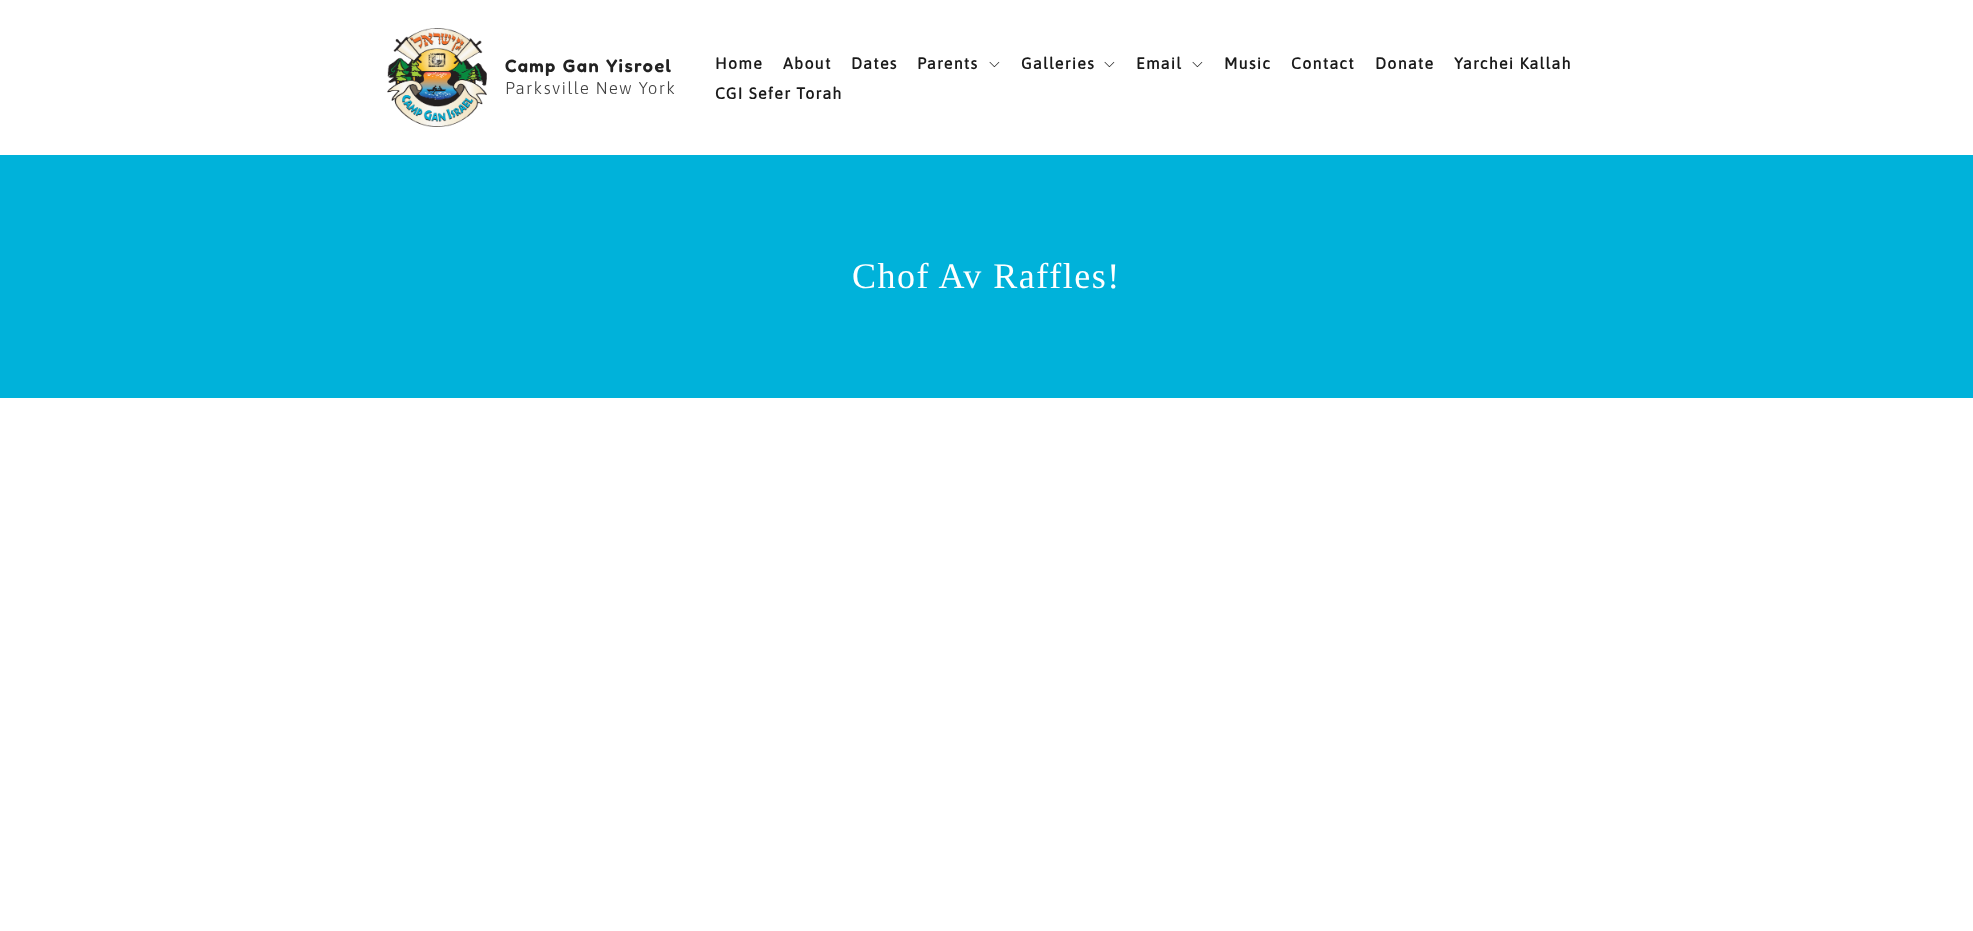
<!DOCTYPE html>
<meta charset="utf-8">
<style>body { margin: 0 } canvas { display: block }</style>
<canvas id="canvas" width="1973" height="931"></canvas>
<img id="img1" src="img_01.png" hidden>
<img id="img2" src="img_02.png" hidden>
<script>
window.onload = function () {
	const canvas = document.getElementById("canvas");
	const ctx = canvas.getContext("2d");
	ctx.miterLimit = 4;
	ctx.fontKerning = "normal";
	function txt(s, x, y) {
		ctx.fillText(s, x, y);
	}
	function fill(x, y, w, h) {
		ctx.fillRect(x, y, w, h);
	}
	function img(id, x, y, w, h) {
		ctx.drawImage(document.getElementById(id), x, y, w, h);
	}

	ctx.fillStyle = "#FFFFFF";
	fill(0, 0, 1973, 931);
	img("img1", 387, 28, 100, 99);
	img("img2", 989, 61, 11, 7);
	img("img2", 1104, 61, 11, 7);
	img("img2", 1192, 61, 11, 7);
	ctx.fillStyle = "#00B2DA";
	fill(0, 155, 1973, 243);
	ctx.letterSpacing = "1.5px";
	ctx.font = "600 18px Fredoka";
	ctx.fillStyle = "#222222";
	txt("Camp Gan Yisroel", 505, 72);
	ctx.letterSpacing = "1.25px";
	ctx.font = "300 17px Asap";
	ctx.fillStyle = "#424242";
	txt("Parksville New York", 505, 94);
	ctx.font = "bold 16px Asap";
	ctx.fillStyle = "#1A1A1A";
	txt("Home", 715, 69);
	txt("About", 783, 69);
	txt("Dates", 851, 69);
	txt("Parents", 917, 69);
	txt("Galleries", 1021, 69);
	txt("Email", 1136, 69);
	txt("Music", 1224, 69);
	txt("Contact", 1291, 69);
	txt("Donate", 1375, 69);
	txt("Yarchei Kallah", 1454, 69);
	txt("CGI Sefer Torah", 715, 99);
	ctx.letterSpacing = "1.5px";
	ctx.font = "36px Liberation Serif";
	ctx.fillStyle = "#FFFFFF";
	txt("Chof Av Raffles!", 852, 288);
};
</script>
